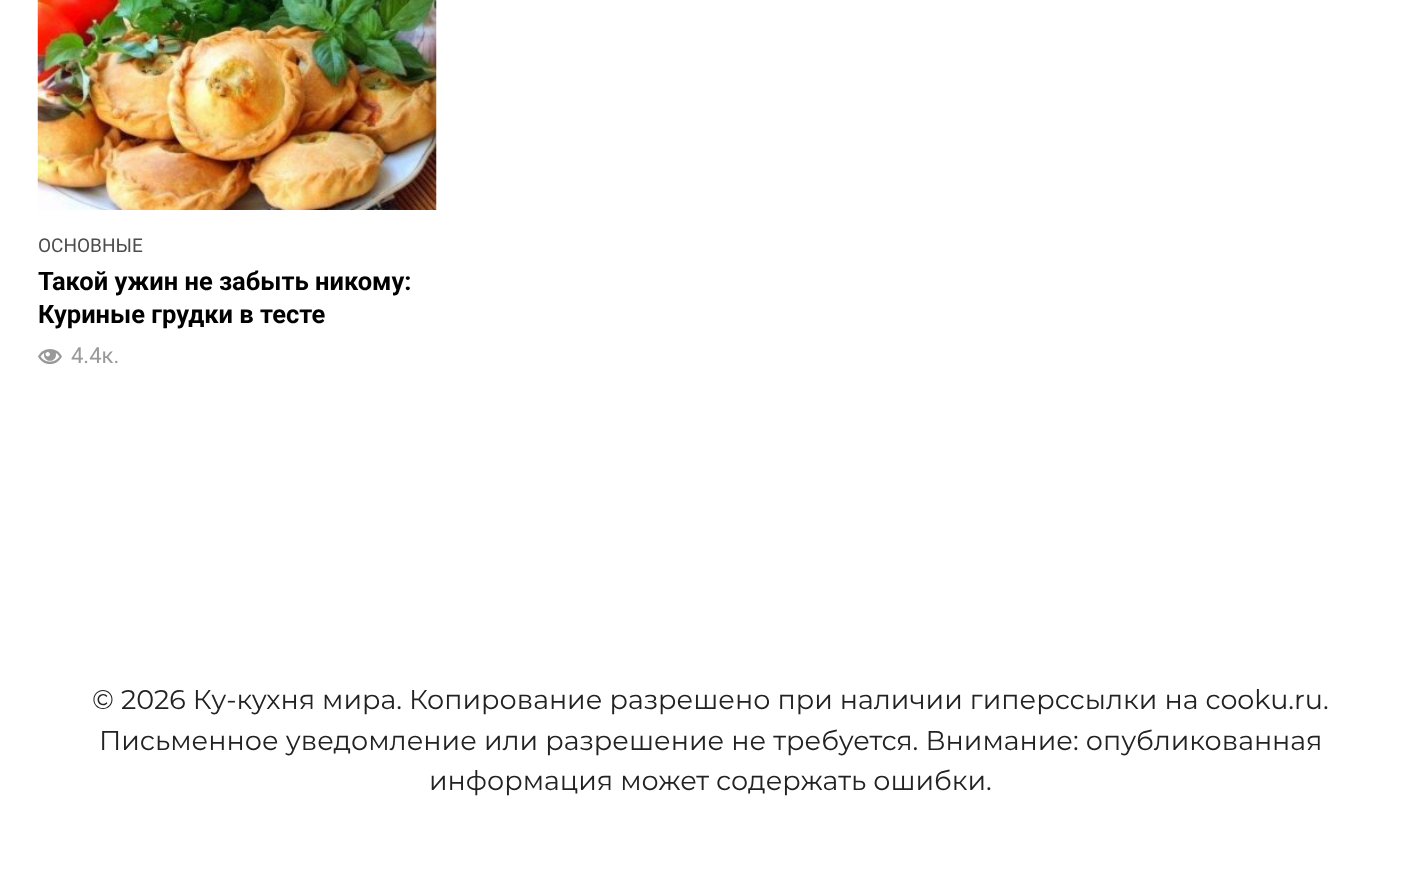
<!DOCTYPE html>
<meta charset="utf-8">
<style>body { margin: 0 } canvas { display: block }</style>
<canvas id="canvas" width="1420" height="877"></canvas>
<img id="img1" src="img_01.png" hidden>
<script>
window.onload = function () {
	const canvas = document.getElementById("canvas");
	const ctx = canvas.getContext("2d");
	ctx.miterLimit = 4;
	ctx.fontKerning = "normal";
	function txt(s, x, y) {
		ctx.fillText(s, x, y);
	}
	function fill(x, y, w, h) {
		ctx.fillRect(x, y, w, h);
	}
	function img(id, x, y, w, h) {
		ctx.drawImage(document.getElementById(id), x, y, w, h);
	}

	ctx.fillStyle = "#FFFFFF";
	fill(0, 0, 1420, 877);
	img("img1", 37, 0, 400, 210);
	ctx.font = "19px Roboto";
	ctx.fillStyle = "#4D4D4D";
	txt("ОСНОВНЫЕ", 38, 252);
	ctx.font = "bold 25.5px Roboto";
	ctx.fillStyle = "#000000";
	txt("Такой ужин не забыть никому:", 38, 290);
	txt("Куриные грудки в тесте", 38, 323);
	ctx.font = "24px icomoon";
	ctx.fillStyle = "#999999";
	txt("👁", 38, 367);
	ctx.font = "22px Roboto";
	txt("4.4к.", 71, 363);
	ctx.font = "27px Montserrat";
	ctx.fillStyle = "#222222";
	txt("© 2026 Ку-кухня мира. Копирование разрешено при наличии гиперссылки на cooku.ru.", 92, 709);
	txt("Письменное уведомление или разрешение не требуется. Внимание: опубликованная", 99, 750);
	txt("информация может содержать ошибки.", 429, 790);
};
</script>
